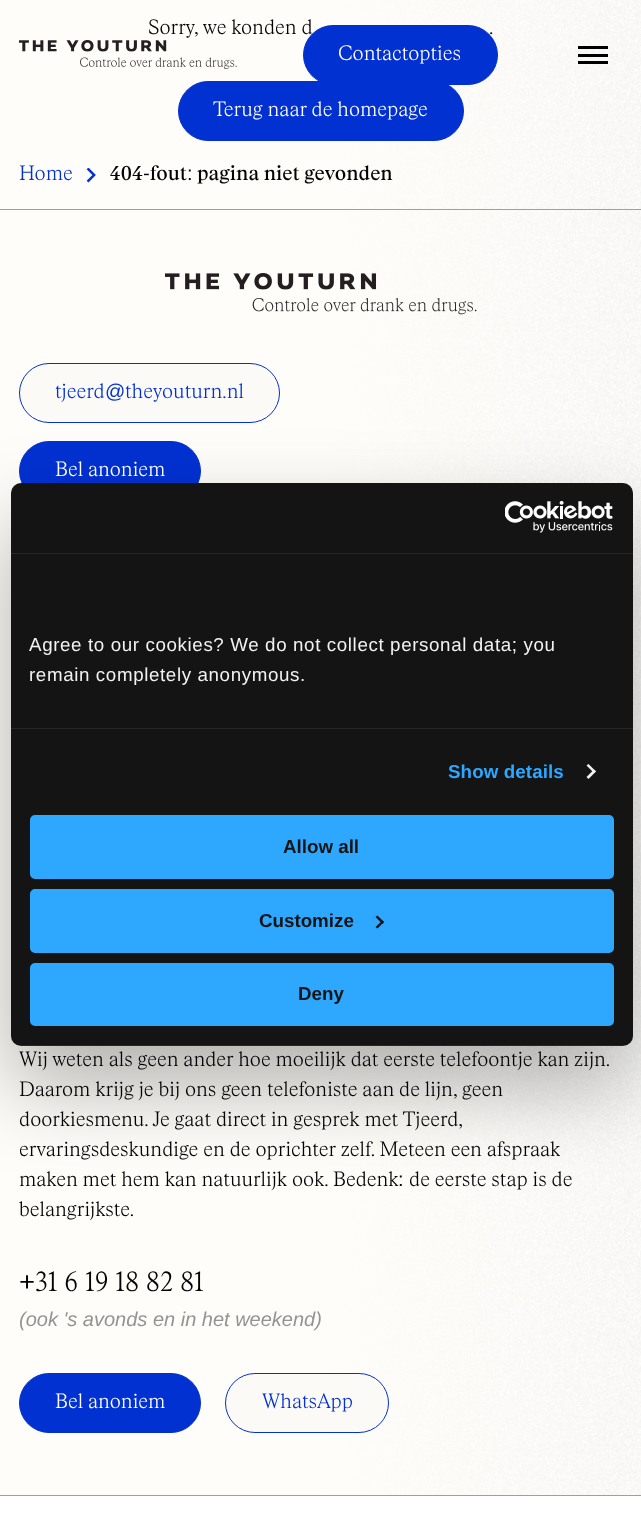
<!DOCTYPE html>
<meta charset="utf-8">
<style>body { margin: 0 } canvas { display: block }</style>
<canvas id="canvas" width="641" height="1527"></canvas>
<img id="img1" src="img_01.png" hidden>
<img id="img2" src="img_02.png" hidden>
<img id="img3" src="img_03.png" hidden>
<img id="img4" src="img_04.png" hidden>
<img id="img5" src="img_05.png" hidden>
<script>
window.onload = function () {
	const canvas = document.getElementById("canvas");
	const ctx = canvas.getContext("2d");
	ctx.miterLimit = 4;
	ctx.fontKerning = "normal";
	function txt(s, x, y) {
		ctx.fillText(s, x, y);
	}
	function fill(x, y, w, h) {
		ctx.fillRect(x, y, w, h);
	}
	function round(x, y, w, h, r) {
		ctx.beginPath();
		ctx.roundRect(x, y, w, h, r);
		ctx.fill();
	}
	function img(id, x, y, w, h) {
		ctx.drawImage(document.getElementById(id), x, y, w, h);
	}

	ctx.fillStyle = "#FFFFFF";
	fill(0, 0, 641, 1527);
	img("img1", 0, 0, 641, 1495);
	ctx.fillStyle = "#0231D2";
	ctx.beginPath();
	ctx.roundRect(178.5, 81.5, 285, 59, 29.5);
	ctx.fill();
	ctx.strokeStyle = "#0231D2";
	ctx.stroke();
	img("img2", 19, 40, 218, 29);
	ctx.fillStyle = "#000000";
	fill(578, 46, 30, 3);
	fill(578, 54, 30, 3);
	fill(578, 61, 30, 3);
	img("img3", 86, 168, 10, 15);
	ctx.fillStyle = "#9F9F9D";
	fill(0, 209, 641, 1);
	fill(0, 1495, 641, 1);
	img("img4", 165, 273, 312, 42);
	ctx.fillStyle = "#FCFAF7";
	ctx.beginPath();
	ctx.roundRect(19.5, 363.5, 260, 59, 29.5);
	ctx.fill();
	ctx.stroke();
	ctx.fillStyle = "#0231D2";
	ctx.beginPath();
	ctx.roundRect(19.5, 441.5, 181, 59, 29.5);
	ctx.fill();
	ctx.stroke();
	ctx.beginPath();
	ctx.roundRect(19.5, 1373.5, 181, 59, 29.5);
	ctx.fill();
	ctx.stroke();
	ctx.fillStyle = "#FCFAF7";
	ctx.beginPath();
	ctx.roundRect(225.5, 1373.5, 163, 59, 29.5);
	ctx.fill();
	ctx.stroke();
	ctx.fillStyle = "rgba(0, 0, 0, 0.3)";
	ctx.filter = "blur(42.5px)";
	ctx.beginPath();
	ctx.roundRect(11, 523, 622, 563, 10);
	ctx.fill();
	ctx.filter = "none";
	ctx.fillStyle = "#141414";
	round(11, 483, 622, 563, 10);
	ctx.fillStyle = "#272727";
	fill(11, 553, 622, 1);
	img("img5", 505, 501, 108, 32);
	fill(11, 728, 622, 1);
	ctx.fillStyle = "#F2F2F2";
	ctx.beginPath();
	ctx.moveTo(588.5, 764);
	ctx.lineTo(596, 771.5);
	ctx.lineTo(594, 773);
	ctx.lineTo(586.5, 765.5);
	ctx.closePath();
	ctx.fill();
	ctx.beginPath();
	ctx.moveTo(594, 769.5);
	ctx.lineTo(596, 771.5);
	ctx.lineTo(588.5, 779);
	ctx.lineTo(586.5, 777);
	ctx.closePath();
	ctx.fill();
	ctx.save();
	ctx.beginPath();
	ctx.roundRect(11, 483, 622, 563, 10);
	ctx.clip();
	ctx.fillStyle = "rgba(255, 255, 255, 0.08)";
	fill(11, 1045, 622, 1);
	ctx.restore();
	ctx.fillStyle = "#2EA7FF";
	ctx.beginPath();
	ctx.roundRect(31.5, 816.5, 581, 61, 3.5);
	ctx.fill();
	ctx.strokeStyle = "#2EA7FF";
	ctx.lineWidth = 3;
	ctx.stroke();
	ctx.beginPath();
	ctx.roundRect(31.5, 890.5, 581, 61, 3.5);
	ctx.fill();
	ctx.stroke();
	ctx.fillStyle = "#141414";
	ctx.beginPath();
	ctx.moveTo(377.5, 915.5);
	ctx.lineTo(384, 922);
	ctx.lineTo(382.5, 924);
	ctx.lineTo(375.5, 917);
	ctx.closePath();
	ctx.fill();
	ctx.beginPath();
	ctx.moveTo(382.5, 920.5);
	ctx.lineTo(384, 922);
	ctx.lineTo(377.5, 928.5);
	ctx.lineTo(375.5, 927);
	ctx.closePath();
	ctx.fill();
	ctx.fillStyle = "#2EA7FF";
	ctx.beginPath();
	ctx.roundRect(31.5, 964.5, 581, 60, 3.5);
	ctx.fill();
	ctx.stroke();
	ctx.font = "200 20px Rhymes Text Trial";
	ctx.fillStyle = "#030303";
	txt("Sorry, we konden d", 148, 34);
	txt(".", 489, 34);
	ctx.fillStyle = "#FFFFFF";
	txt("Terug naar de homepage", 213, 116);
	ctx.fillStyle = "#0231D2";
	ctx.beginPath();
	ctx.roundRect(303.5, 25.5, 194, 59, 29.5);
	ctx.fill();
	ctx.strokeStyle = "#0231D2";
	ctx.lineWidth = 1;
	ctx.stroke();
	ctx.fillStyle = "#FFFFFF";
	txt("Contactopties", 338, 60);
	ctx.fillStyle = "#0231D2";
	txt("Home", 19, 180);
	ctx.font = "500 20px Rhymes Text Trial";
	ctx.fillStyle = "#030303";
	txt("404-fout", 110, 180);
	ctx.font = "20px Liberation Sans";
	txt(":", 187, 180);
	ctx.font = "500 20px Rhymes Text Trial";
	txt("pagina niet gevonden", 197, 180);
	ctx.font = "200 20px Rhymes Text Trial";
	ctx.fillStyle = "#0231D2";
	txt("tjeerd", 55, 398);
	ctx.font = "20px Liberation Sans";
	txt("@", 105, 398);
	ctx.font = "200 20px Rhymes Text Trial";
	txt("theyouturn.nl", 125, 398);
	ctx.fillStyle = "#FFFFFF";
	txt("Bel anoniem", 55, 476);
	ctx.fillStyle = "#030303";
	txt("Wij weten als geen ander hoe moeilijk dat eerste telefoontje kan zijn.", 19, 1066);
	txt("Daarom krijg je bij ons geen telefoniste aan de lijn, geen", 19, 1096);
	txt("doorkiesmenu. Je gaat direct in gesprek met Tjeerd,", 19, 1126);
	txt("ervaringsdeskundige en de oprichter zelf. Meteen een afspraak", 19, 1156);
	txt("maken met hem kan natuurlijk ook. Bedenk", 19, 1186);
	ctx.font = "20px Liberation Sans";
	txt(":", 398, 1186);
	ctx.font = "200 20px Rhymes Text Trial";
	txt("de eerste stap is de", 409, 1186);
	txt("belangrijkste.", 19, 1216);
	ctx.font = "27.5px Liberation Sans";
	txt("+", 19, 1291);
	ctx.font = "200 27.5px Rhymes Text Trial";
	txt("31 6 19 18 82 81", 35, 1291);
	ctx.font = "italic 20px Liberation Sans";
	ctx.fillStyle = "#939393";
	txt("(ook 's avonds en in het weekend)", 19, 1326);
	ctx.font = "200 20px Rhymes Text Trial";
	ctx.fillStyle = "#FFFFFF";
	txt("Bel anoniem", 55, 1408);
	ctx.fillStyle = "#0231D2";
	txt("WhatsApp", 262, 1408);
	ctx.letterSpacing = "0.62px";
	ctx.font = "18.75px Liberation Sans";
	ctx.fillStyle = "#F2F2F2";
	txt("Agree to our cookies? We do not collect personal data; you", 29, 651);
	txt("remain completely anonymous.", 29, 681);
	ctx.letterSpacing = "0.1px";
	ctx.font = "bold 18.75px Liberation Sans";
	ctx.fillStyle = "#2EA7FF";
	txt("Show details", 448, 778);
	ctx.letterSpacing = "0px";
	ctx.fillStyle = "#141414";
	txt("Allow all", 283, 853);
	txt("Customize", 259, 927);
	txt("Deny", 298, 1000);
};
</script>
